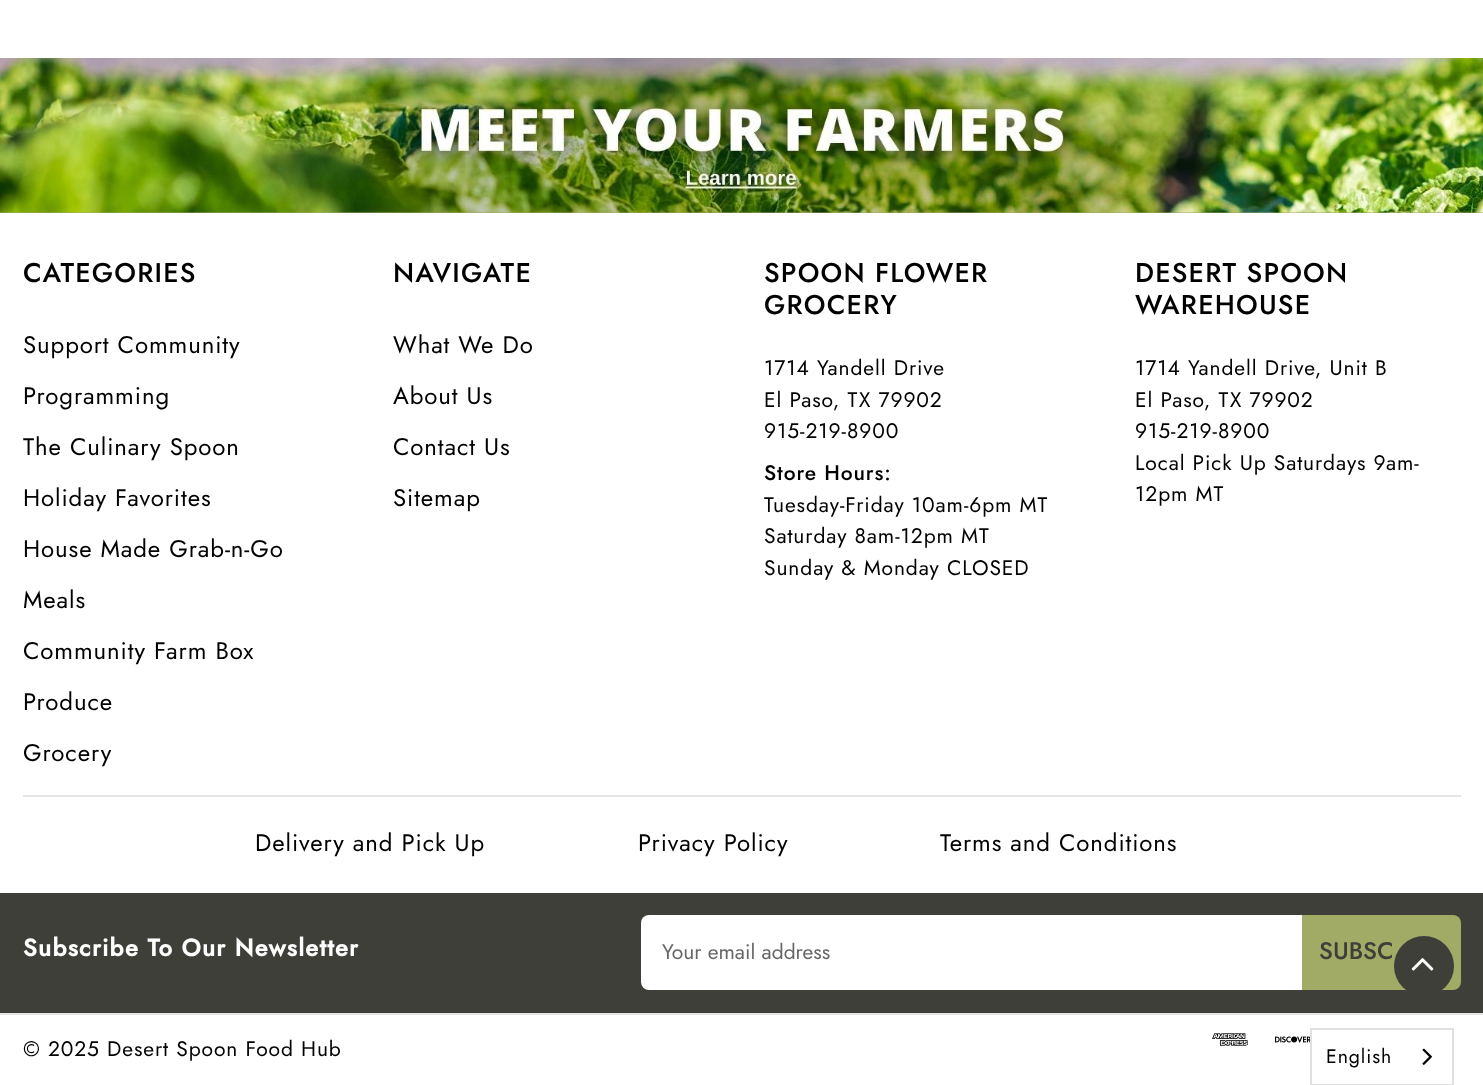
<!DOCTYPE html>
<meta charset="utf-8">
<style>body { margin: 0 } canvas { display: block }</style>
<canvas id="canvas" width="1483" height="1085"></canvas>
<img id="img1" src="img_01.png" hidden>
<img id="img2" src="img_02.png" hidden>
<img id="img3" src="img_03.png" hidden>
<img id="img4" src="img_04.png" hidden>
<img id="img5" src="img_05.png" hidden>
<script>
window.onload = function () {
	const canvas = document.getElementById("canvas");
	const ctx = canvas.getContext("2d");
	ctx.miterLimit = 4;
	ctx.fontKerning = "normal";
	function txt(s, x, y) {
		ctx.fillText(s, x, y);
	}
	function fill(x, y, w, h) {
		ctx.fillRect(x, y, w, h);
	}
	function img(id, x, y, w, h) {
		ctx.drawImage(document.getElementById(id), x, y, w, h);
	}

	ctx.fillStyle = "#FFFFFF";
	fill(0, 0, 1483, 1085);
	ctx.fillStyle = "#A1AB66";
	fill(0, 212, 1483, 1);
	img("img1", 0, 58, 1483, 155);
	ctx.fillStyle = "#E5E5E5";
	fill(23, 795, 1438, 2);
	ctx.fillStyle = "#3F3F3A";
	fill(0, 893, 1483, 120);
	ctx.fillStyle = "#FFFFFF";
	ctx.beginPath();
	ctx.roundRect(641, 915, 661, 75, [8, 0, 0, 8]);
	ctx.fill();
	ctx.fillStyle = "#A1AB66";
	ctx.beginPath();
	ctx.roundRect(1302, 915, 159, 75, [0, 8, 8, 0]);
	ctx.fill();
	ctx.fillStyle = "#3F3F3A";
	ctx.beginPath();
	ctx.arc(1424, 966, 30, 0, Math.PI * 2);
	ctx.fill();
	img("img2", 1411, 958, 23, 13);
	ctx.fillStyle = "#E5E5E5";
	fill(0, 1013, 1483, 2);
	img("img3", 1212, 1033, 36, 13);
	img("img4", 1275, 1036, 35, 7);
	ctx.strokeStyle = "#E0E0E0";
	ctx.lineWidth = 2;
	ctx.strokeRect(1311, 1029, 142, 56);
	img("img5", 1422, 1048, 10, 17);
	ctx.letterSpacing = "1.2px";
	ctx.font = "500 27px Jost";
	ctx.fillStyle = "#000000";
	txt("CATEGORIES", 23, 282);
	ctx.letterSpacing = "0.9px";
	ctx.font = "24px Jost";
	txt("Support Community", 23, 353);
	txt("Programming", 23, 404);
	txt("The Culinary Spoon", 23, 455);
	txt("Holiday Favorites", 23, 506);
	txt("House Made Grab-n-Go", 23, 557);
	txt("Meals", 23, 608);
	txt("Community Farm Box", 23, 659);
	txt("Produce", 23, 710);
	txt("Grocery", 23, 761);
	ctx.letterSpacing = "1.2px";
	ctx.font = "500 27px Jost";
	txt("NAVIGATE", 393, 282);
	ctx.letterSpacing = "0.9px";
	ctx.font = "24px Jost";
	txt("What We Do", 393, 353);
	txt("About Us", 393, 404);
	txt("Contact Us", 393, 455);
	txt("Sitemap", 393, 506);
	ctx.letterSpacing = "1.2px";
	ctx.font = "500 27px Jost";
	txt("SPOON FLOWER", 764, 282);
	txt("GROCERY", 764, 314);
	ctx.letterSpacing = "0.9px";
	ctx.font = "21px Jost";
	txt("1714 Yandell Drive", 764, 375);
	txt("El Paso, TX 79902", 764, 407);
	txt("915-219-8900", 764, 438);
	ctx.font = "500 21px Jost";
	txt("Store Hours:", 764, 480);
	ctx.font = "21px Jost";
	txt("Tuesday-Friday 10am-6pm MT", 764, 512);
	txt("Saturday 8am-12pm MT", 764, 543);
	txt("Sunday & Monday CLOSED", 764, 575);
	ctx.letterSpacing = "1.2px";
	ctx.font = "500 27px Jost";
	txt("DESERT SPOON", 1135, 282);
	txt("WAREHOUSE", 1135, 314);
	ctx.letterSpacing = "0.9px";
	ctx.font = "21px Jost";
	txt("1714 Yandell Drive, Unit B", 1135, 375);
	txt("El Paso, TX 79902", 1135, 407);
	txt("915-219-8900", 1135, 438);
	txt("Local Pick Up Saturdays 9am-", 1135, 470);
	txt("12pm MT", 1135, 501);
	ctx.font = "24px Jost";
	txt("Delivery and Pick Up", 255, 851);
	txt("Privacy Policy", 638, 851);
	txt("Terms and Conditions", 940, 851);
	ctx.letterSpacing = "1.2px";
	ctx.font = "bold 24px Jost";
	ctx.fillStyle = "#FFFFFF";
	txt("Subscribe To Our Newsletter", 23, 956);
	ctx.letterSpacing = "0px";
	ctx.font = "21px Jost";
	ctx.fillStyle = "#666666";
	txt("Your email address", 662, 959);
	ctx.font = "500 24px Jost";
	ctx.fillStyle = "#3F3F3A";
	txt("SUBSC", 1319, 959);
	ctx.letterSpacing = "0.9px";
	ctx.font = "21px Jost";
	ctx.fillStyle = "#000000";
	txt("© 2025 Desert Spoon Food Hub", 23, 1056);
	ctx.font = "19.5px Jost";
	txt("English", 1326, 1063);
};
</script>
